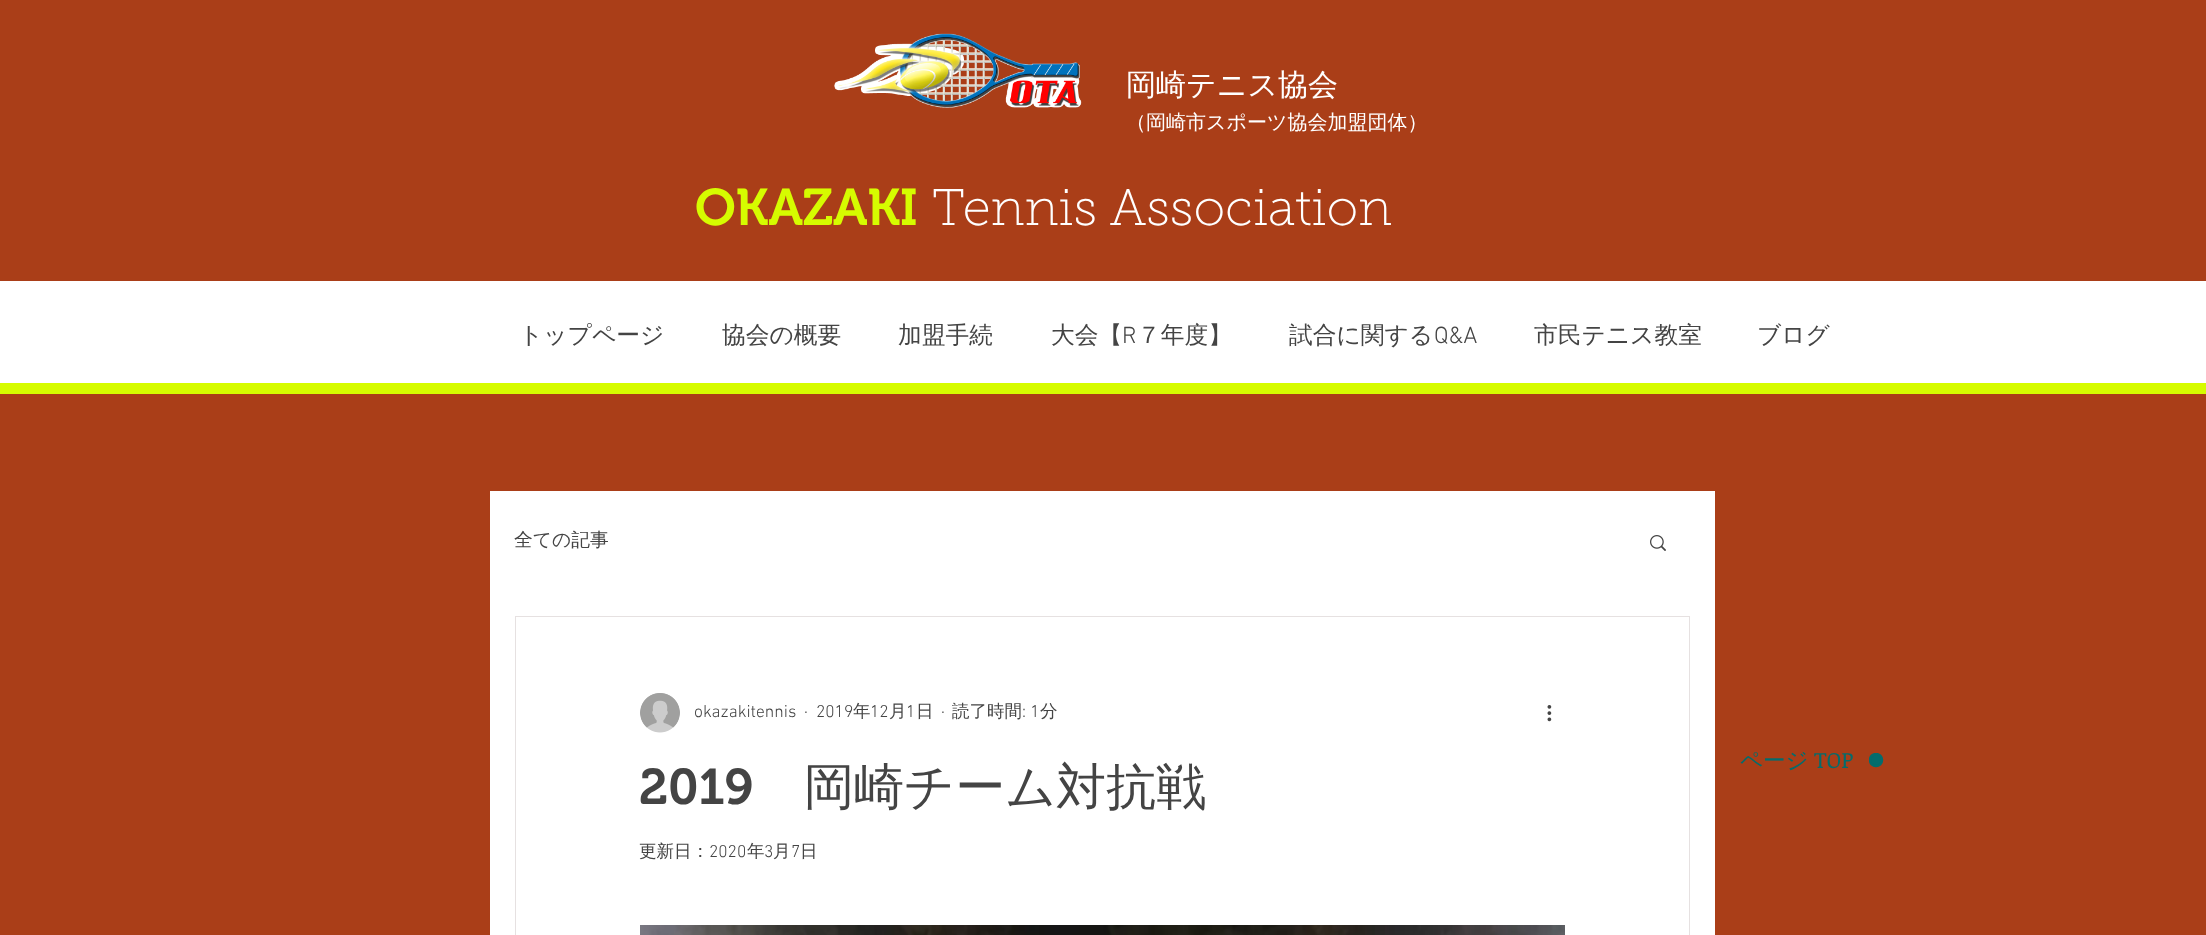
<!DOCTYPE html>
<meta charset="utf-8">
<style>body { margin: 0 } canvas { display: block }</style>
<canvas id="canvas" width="2206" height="935"></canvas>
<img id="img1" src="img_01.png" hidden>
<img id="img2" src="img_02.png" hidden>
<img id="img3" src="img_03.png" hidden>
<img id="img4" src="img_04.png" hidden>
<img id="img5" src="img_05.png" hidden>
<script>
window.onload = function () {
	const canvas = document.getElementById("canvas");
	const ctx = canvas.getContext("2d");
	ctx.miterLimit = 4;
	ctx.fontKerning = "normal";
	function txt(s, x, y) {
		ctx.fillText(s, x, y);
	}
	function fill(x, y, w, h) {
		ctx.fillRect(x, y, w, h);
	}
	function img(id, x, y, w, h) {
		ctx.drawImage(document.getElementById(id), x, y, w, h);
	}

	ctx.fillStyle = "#AA3E18";
	fill(0, 0, 2206, 935);
	img("img1", 834, 33, 248, 75);
	ctx.fillStyle = "#FFFFFF";
	fill(0, 281, 2206, 102);
	ctx.fillStyle = "#D6FC00";
	fill(0, 383, 2206, 11);
	ctx.fillStyle = "#FFFFFF";
	fill(490, 491, 1225, 444);
	img("img2", 1650, 535, 16, 16);
	ctx.strokeStyle = "#E6E1E1";
	ctx.strokeRect(515.5, 616.5, 1174, 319);
	img("img3", 640, 693, 40, 40);
	img("img4", 1547, 705, 5, 17);
	img("img5", 640, 925, 925, 10);
	ctx.fillStyle = "#046C6C";
	ctx.beginPath();
	ctx.arc(1876, 760, 6, 0, Math.PI * 2);
	ctx.fill();
	ctx.save();
	ctx.beginPath();
	ctx.rect(1869, 753, 15, 15);
	ctx.clip();
	ctx.beginPath();
	ctx.arc(1876, 760, 6, 0, Math.PI * 2);
	ctx.strokeStyle = "#046C6C";
	ctx.lineWidth = 2.5;
	ctx.stroke();
	ctx.restore();
	ctx.font = "500 30px WenQuanYi Zen Hei";
	ctx.fillStyle = "#FFFFFF";
	txt("岡崎テニス協会", 1126, 95);
	ctx.font = "500 20px WenQuanYi Zen Hei";
	txt("（岡崎市スポーツ協会加盟団体）", 1126, 129);
	ctx.font = "600 51.25px 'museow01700'";
	ctx.fillStyle = "#D6FC00";
	txt("OKAZAKI", 695, 225);
	ctx.font = "100 51.25px 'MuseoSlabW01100'";
	ctx.fillStyle = "#FFFFFF";
	txt("Tennis Association", 932, 225);
	ctx.font = "500 23.75px WenQuanYi Zen Hei";
	ctx.fillStyle = "#444444";
	txt("トップページ", 519, 343);
	txt("協会の概要", 722, 343);
	txt("加盟手続", 898, 343);
	txt("大会【", 1051, 343);
	ctx.font = "300 23.75px 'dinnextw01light'";
	txt("R", 1122, 343);
	ctx.font = "500 23.75px WenQuanYi Zen Hei";
	txt("７年度】", 1137, 343);
	txt("試合に関する", 1289, 343);
	ctx.font = "300 23.75px 'dinnextw01light'";
	txt("Q&A", 1434, 343);
	ctx.font = "500 23.75px WenQuanYi Zen Hei";
	txt("市民テニス教室", 1534, 343);
	txt("ブログ", 1757, 343);
	ctx.font = "500 18.75px WenQuanYi Zen Hei";
	txt("全ての記事", 514, 546);
	ctx.font = "300 17.5px 'dinnextw01light'";
	txt("okazakitennis", 694, 717);
	txt("·", 804, 717);
	txt("2019", 816, 717);
	ctx.font = "500 17.5px WenQuanYi Zen Hei";
	txt("年", 853, 717);
	ctx.font = "300 17.5px 'dinnextw01light'";
	txt("12", 870, 717);
	ctx.font = "500 17.5px WenQuanYi Zen Hei";
	txt("月", 889, 717);
	ctx.font = "300 17.5px 'dinnextw01light'";
	txt("1", 906, 717);
	ctx.font = "500 17.5px WenQuanYi Zen Hei";
	txt("日", 916, 717);
	ctx.font = "300 17.5px 'dinnextw01light'";
	txt("·", 941, 717);
	ctx.font = "500 17.5px WenQuanYi Zen Hei";
	txt("読了時間", 952, 717);
	ctx.font = "300 17.5px 'dinnextw01light'";
	txt(": 1", 1022, 717);
	ctx.font = "500 17.5px WenQuanYi Zen Hei";
	txt("分", 1040, 717);
	ctx.font = "600 50px 'museow01700'";
	txt("2019", 639, 804);
	ctx.font = "500 50px WenQuanYi Zen Hei";
	txt("岡崎チーム対抗戦", 804, 804);
	ctx.font = "500 17.5px WenQuanYi Zen Hei";
	txt("更新日：", 639, 857);
	ctx.font = "300 17.5px 'dinnextw01light'";
	txt("2020", 709, 857);
	ctx.font = "500 17.5px WenQuanYi Zen Hei";
	txt("年", 747, 857);
	ctx.font = "300 17.5px 'dinnextw01light'";
	txt("3", 764, 857);
	ctx.font = "500 17.5px WenQuanYi Zen Hei";
	txt("月", 773, 857);
	ctx.font = "300 17.5px 'dinnextw01light'";
	txt("7", 791, 857);
	ctx.font = "500 17.5px WenQuanYi Zen Hei";
	txt("日", 800, 857);
	ctx.font = "500 22.5px WenQuanYi Zen Hei";
	ctx.fillStyle = "#046C6C";
	txt("ページ", 1740, 768);
	ctx.font = "22.5px Noticia Text";
	txt("TOP", 1814, 768);
};
</script>
